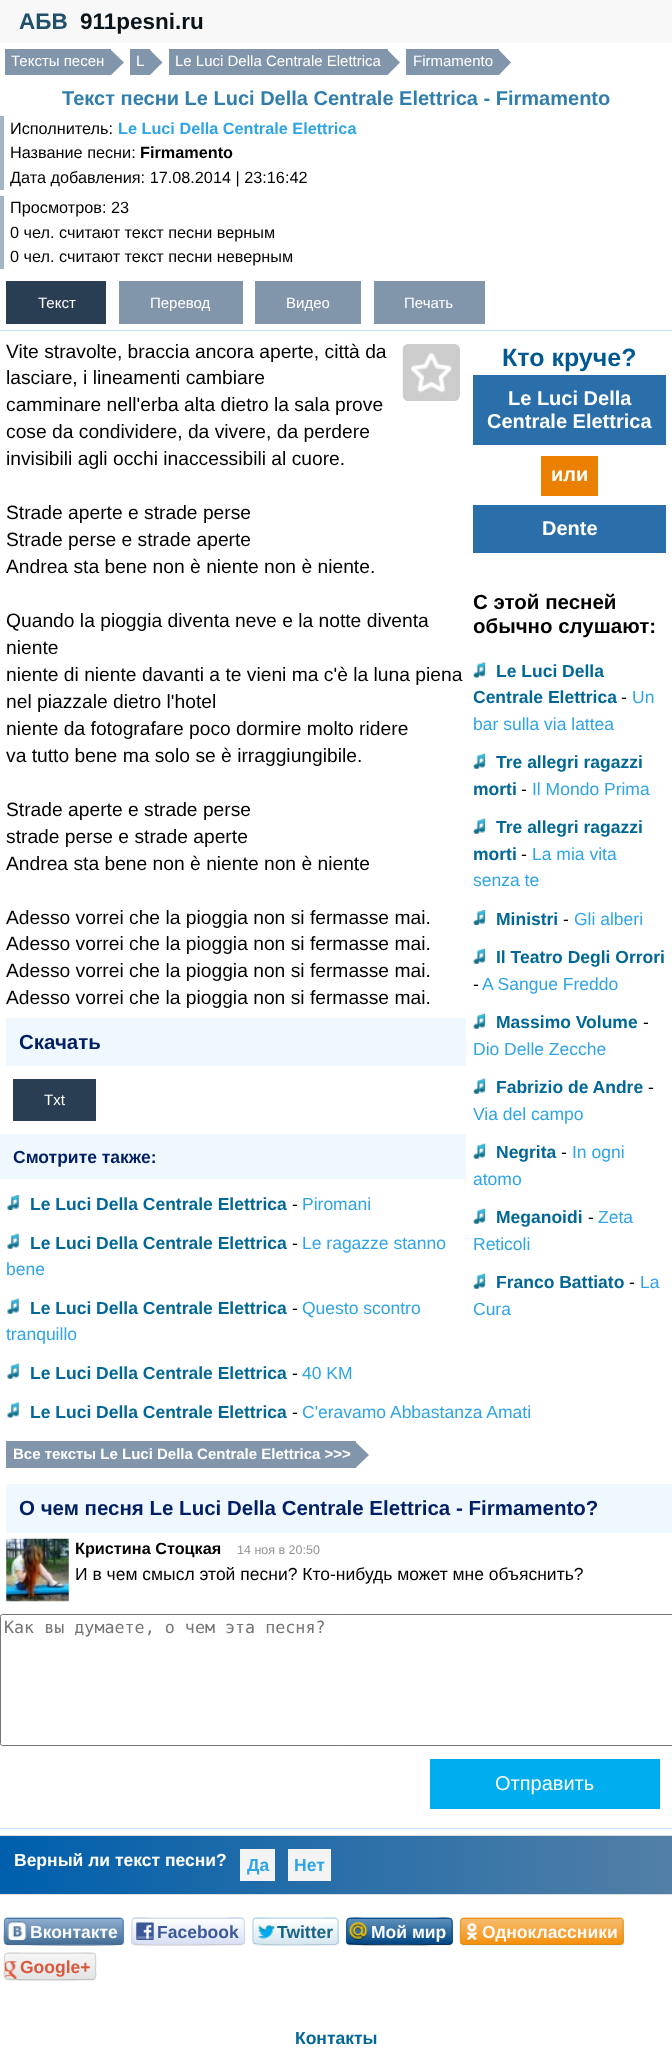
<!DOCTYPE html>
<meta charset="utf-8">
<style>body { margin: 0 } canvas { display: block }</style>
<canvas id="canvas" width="672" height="2056"></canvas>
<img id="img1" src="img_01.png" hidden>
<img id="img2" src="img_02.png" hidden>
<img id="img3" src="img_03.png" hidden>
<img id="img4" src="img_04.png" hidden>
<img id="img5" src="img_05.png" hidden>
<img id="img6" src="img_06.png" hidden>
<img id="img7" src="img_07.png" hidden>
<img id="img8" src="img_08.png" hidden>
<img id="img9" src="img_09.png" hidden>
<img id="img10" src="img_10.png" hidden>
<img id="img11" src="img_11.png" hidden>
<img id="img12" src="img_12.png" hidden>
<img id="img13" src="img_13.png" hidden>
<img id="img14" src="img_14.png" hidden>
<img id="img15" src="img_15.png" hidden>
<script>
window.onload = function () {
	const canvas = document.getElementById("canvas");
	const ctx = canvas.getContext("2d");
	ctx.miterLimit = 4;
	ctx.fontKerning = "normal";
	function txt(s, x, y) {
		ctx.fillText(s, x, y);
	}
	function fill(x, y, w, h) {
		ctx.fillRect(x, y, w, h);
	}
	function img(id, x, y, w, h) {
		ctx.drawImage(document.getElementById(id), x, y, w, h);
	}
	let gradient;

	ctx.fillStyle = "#FFFFFF";
	fill(0, 0, 672, 2056);
	ctx.fillStyle = "#F8F8F8";
	fill(0, 0, 672, 43);
	ctx.fillStyle = "#8296AB";
	fill(5, 49, 106, 26);
	ctx.beginPath();
	ctx.moveTo(111, 75);
	ctx.lineTo(111, 50);
	ctx.lineTo(124, 62.5);
	ctx.closePath();
	ctx.fill();
	fill(130, 49, 20, 26);
	ctx.beginPath();
	ctx.moveTo(150, 75);
	ctx.lineTo(150, 50);
	ctx.lineTo(162.5, 62.5);
	ctx.closePath();
	ctx.fill();
	fill(169, 49, 219, 26);
	ctx.beginPath();
	ctx.moveTo(387.5, 75);
	ctx.lineTo(387.5, 50);
	ctx.lineTo(400, 62.5);
	ctx.closePath();
	ctx.fill();
	fill(406, 49, 93, 26);
	ctx.beginPath();
	ctx.moveTo(499, 75);
	ctx.lineTo(499, 50);
	ctx.lineTo(511, 62.5);
	ctx.closePath();
	ctx.fill();
	ctx.fillStyle = "#A3B4C3";
	fill(0, 116, 4, 74);
	fill(0, 196, 4, 73);
	ctx.fillStyle = "#2A3E53";
	fill(6, 281, 100, 43);
	ctx.fillStyle = "#8296AB";
	fill(119, 281, 124, 43);
	fill(255, 281, 106, 43);
	fill(374, 281, 111, 43);
	ctx.fillStyle = "#C0E2FF";
	fill(0, 330, 672, 1);
	fill(0, 1828, 672, 1);
	ctx.fillStyle = "#F0F8FF";
	fill(6, 1018, 460, 48);
	ctx.fillStyle = "#2A3E53";
	fill(13, 1079, 83, 42);
	ctx.fillStyle = "#F0F8FF";
	fill(0, 1134, 466, 45);
	img("img1", 7, 1195, 12, 15);
	img("img2", 7, 1233, 12, 16);
	img("img2", 7, 1298, 12, 16);
	img("img2", 7, 1363, 12, 16);
	img("img3", 7, 1402, 12, 16);
	ctx.fillStyle = "#8296AB";
	fill(6, 1441, 350, 27);
	ctx.beginPath();
	ctx.moveTo(356, 1467.5);
	ctx.lineTo(356, 1442.5);
	ctx.lineTo(369, 1455);
	ctx.closePath();
	ctx.fill();
	ctx.fillStyle = "#F0F8FF";
	fill(6, 1484, 666, 49);
	img("img4", 6, 1538, 63, 64);
	ctx.beginPath();
	ctx.roundRect(0.5, 1614.5, 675, 131, 2);
	ctx.strokeStyle = "#767676";
	ctx.stroke();
	ctx.fillStyle = "#00AEEF";
	fill(430, 1759, 230, 50);
	img("img5", 402, 344, 58, 57);
	img("img6", 411, 352, 41, 41);
	ctx.fillStyle = "#2A6FA9";
	fill(473, 375, 193, 70);
	ctx.fillStyle = "#EA7F00";
	fill(541, 456, 57, 40);
	ctx.fillStyle = "#2A6FA9";
	fill(473, 505, 193, 48);
	img("img7", 473, 662, 13, 16);
	img("img8", 473, 753, 13, 16);
	img("img8", 473, 818, 13, 16);
	img("img9", 473, 910, 13, 15);
	img("img8", 473, 948, 13, 16);
	img("img8", 473, 1013, 13, 16);
	img("img8", 473, 1078, 13, 16);
	img("img8", 473, 1143, 13, 16);
	img("img8", 473, 1208, 13, 16);
	img("img8", 473, 1273, 13, 16);
	gradient = ctx.createLinearGradient(0, 1865, 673, 1865);
	gradient.addColorStop(0.01, "#005FAC");
	gradient.addColorStop(1, "#527FA6");
	ctx.fillStyle = gradient;
	fill(0, 1836, 672, 58);
	ctx.fillStyle = "#DDDDDD";
	fill(0, 1835, 672, 1);
	fill(0, 1894, 672, 1);
	ctx.fillStyle = "#F4F4F4";
	fill(240, 1849, 35, 32);
	fill(288, 1849, 43, 32);
	ctx.fillStyle = "rgba(0, 0, 0, 0.05)";
	ctx.filter = "blur(0.5px)";
	ctx.beginPath();
	ctx.roundRect(4, 1919, 120, 27, 4);
	ctx.fill();
	ctx.filter = "none";
	ctx.save();
	ctx.beginPath();
	ctx.roundRect(4, 1918, 120, 27, 4);
	ctx.clip();
	gradient = ctx.createLinearGradient(64, 1894, 64, 1919);
	gradient.addColorStop(0, "#8FAECF");
	gradient.addColorStop(1, "#436F96");
	ctx.fillStyle = gradient;
	fill(4, 1918, 120, 1);
	gradient = ctx.createLinearGradient(64, 1919, 64, 1944);
	gradient.addColorStop(0, "#8FAECF");
	gradient.addColorStop(1, "#436F96");
	ctx.fillStyle = gradient;
	fill(4, 1919, 120, 25);
	gradient = ctx.createLinearGradient(64, 1944, 64, 1969);
	gradient.addColorStop(0, "#8FAECF");
	gradient.addColorStop(1, "#436F96");
	ctx.fillStyle = gradient;
	fill(4, 1944, 120, 1);
	ctx.restore();
	ctx.beginPath();
	ctx.moveTo(122, 1943.5);
	ctx.lineTo(121.5, 1944);
	ctx.bezierCurveTo(119.5, 1945.5, 36, 1944.5, 26, 1944.5);
	ctx.lineTo(7.5, 1944.5);
	ctx.lineTo(5.5, 1943.5);
	ctx.strokeStyle = "rgba(52, 88, 127, 0.8)";
	ctx.lineWidth = 1.2;
	ctx.stroke();
	ctx.beginPath();
	ctx.moveTo(5.5, 1943.5);
	ctx.bezierCurveTo(3, 1941.5, 4.5, 1934, 4.5, 1931);
	ctx.lineTo(4.5, 1924.5);
	ctx.bezierCurveTo(4.5, 1922, 4, 1918, 7.5, 1918);
	ctx.lineTo(120, 1918);
	ctx.bezierCurveTo(123.5, 1918, 123, 1922, 123, 1924.5);
	ctx.lineTo(123, 1931);
	ctx.bezierCurveTo(123, 1934, 124.5, 1941.5, 122, 1943.5);
	ctx.strokeStyle = "rgba(78, 131, 193, 0.8)";
	ctx.stroke();
	img("img10", 6, 1921, 22, 21);
	ctx.filter = "blur(0.5px)";
	ctx.beginPath();
	ctx.roundRect(131, 1919, 114, 27, 4);
	ctx.fill();
	ctx.filter = "none";
	ctx.save();
	ctx.beginPath();
	ctx.roundRect(131, 1918, 114, 27, 4);
	ctx.clip();
	gradient = ctx.createLinearGradient(188, 1894, 188, 1919);
	gradient.addColorStop(0, "#FFFFFF");
	gradient.addColorStop(1, "#D8DEF4");
	ctx.fillStyle = gradient;
	fill(131, 1918, 114, 1);
	gradient = ctx.createLinearGradient(188, 1919, 188, 1944);
	gradient.addColorStop(0, "#FFFFFF");
	gradient.addColorStop(1, "#D8DEF4");
	ctx.fillStyle = gradient;
	fill(131, 1919, 114, 25);
	gradient = ctx.createLinearGradient(188, 1944, 188, 1969);
	gradient.addColorStop(0, "#FFFFFF");
	gradient.addColorStop(1, "#D8DEF4");
	ctx.fillStyle = gradient;
	fill(131, 1944, 114, 1);
	ctx.restore();
	ctx.beginPath();
	ctx.moveTo(243.5, 1943.5);
	ctx.lineTo(241, 1944.5);
	ctx.lineTo(223.5, 1944.5);
	ctx.bezierCurveTo(214, 1944.5, 135.5, 1945.5, 133.5, 1944);
	ctx.lineTo(133, 1943.5);
	ctx.strokeStyle = "rgba(189, 194, 203, 0.8)";
	ctx.stroke();
	ctx.beginPath();
	ctx.moveTo(133, 1943.5);
	ctx.bezierCurveTo(130.5, 1941.5, 132, 1934, 132, 1931);
	ctx.bezierCurveTo(132, 1913.5, 130.5, 1918, 152.5, 1918);
	ctx.lineTo(223.5, 1918);
	ctx.bezierCurveTo(245.5, 1918, 244.5, 1913.5, 244.5, 1931);
	ctx.bezierCurveTo(244.5, 1934, 245.5, 1941.5, 243.5, 1943.5);
	ctx.strokeStyle = "rgba(202, 212, 231, 0.8)";
	ctx.stroke();
	img("img11", 136, 1922, 18, 18);
	ctx.filter = "blur(0.5px)";
	ctx.beginPath();
	ctx.roundRect(253, 1919, 86, 27, 4);
	ctx.fill();
	ctx.filter = "none";
	ctx.save();
	ctx.beginPath();
	ctx.roundRect(253, 1918, 86, 27, 4);
	ctx.clip();
	gradient = ctx.createLinearGradient(296, 1894, 296, 1919);
	gradient.addColorStop(0, "#FFFFFF");
	gradient.addColorStop(1, "#D5E6EF");
	ctx.fillStyle = gradient;
	fill(253, 1918, 86, 1);
	gradient = ctx.createLinearGradient(296, 1919, 296, 1944);
	gradient.addColorStop(0, "#FFFFFF");
	gradient.addColorStop(1, "#D5E6EF");
	ctx.fillStyle = gradient;
	fill(253, 1919, 86, 25);
	gradient = ctx.createLinearGradient(296, 1944, 296, 1969);
	gradient.addColorStop(0, "#FFFFFF");
	gradient.addColorStop(1, "#D5E6EF");
	ctx.fillStyle = gradient;
	fill(253, 1944, 86, 1);
	ctx.restore();
	ctx.beginPath();
	ctx.moveTo(337, 1943.5);
	ctx.lineTo(335, 1944.5);
	ctx.lineTo(322, 1944.5);
	ctx.bezierCurveTo(314.5, 1944.5, 256.5, 1945.5, 254.5, 1943.5);
	ctx.lineTo(254, 1943.5);
	ctx.strokeStyle = "rgba(158, 186, 204, 0.8)";
	ctx.stroke();
	ctx.beginPath();
	ctx.moveTo(254, 1943.5);
	ctx.bezierCurveTo(252, 1941.5, 253, 1937, 253, 1934.5);
	ctx.bezierCurveTo(253, 1915.5, 249.5, 1918, 269.5, 1918);
	ctx.lineTo(322, 1918);
	ctx.bezierCurveTo(341.5, 1918, 338, 1915.5, 338, 1934.5);
	ctx.bezierCurveTo(338, 1937, 339.5, 1941.5, 337, 1943.5);
	ctx.strokeStyle = "rgba(164, 204, 229, 0.8)";
	ctx.stroke();
	img("img12", 257, 1925, 18, 14);
	ctx.filter = "blur(0.5px)";
	ctx.beginPath();
	ctx.roundRect(346, 1919, 107, 27, 4);
	ctx.fill();
	ctx.filter = "none";
	ctx.save();
	ctx.beginPath();
	ctx.roundRect(346, 1918, 107, 27, 4);
	ctx.clip();
	gradient = ctx.createLinearGradient(399, 1894, 399, 1919);
	gradient.addColorStop(0, "#5D90BA");
	gradient.addColorStop(1, "#004584");
	ctx.fillStyle = gradient;
	fill(346, 1918, 107, 1);
	gradient = ctx.createLinearGradient(399, 1919, 399, 1944);
	gradient.addColorStop(0, "#5D90BA");
	gradient.addColorStop(1, "#004584");
	ctx.fillStyle = gradient;
	fill(346, 1919, 107, 25);
	gradient = ctx.createLinearGradient(399, 1944, 399, 1969);
	gradient.addColorStop(0, "#5D90BA");
	gradient.addColorStop(1, "#004584");
	ctx.fillStyle = gradient;
	fill(346, 1944, 107, 1);
	ctx.restore();
	ctx.beginPath();
	ctx.moveTo(451, 1943.5);
	ctx.lineTo(449, 1944.5);
	ctx.lineTo(432.5, 1944.5);
	ctx.bezierCurveTo(423.5, 1944.5, 350, 1945.5, 348, 1943.5);
	ctx.strokeStyle = "rgba(3, 27, 48, 0.8)";
	ctx.stroke();
	ctx.beginPath();
	ctx.moveTo(348, 1943.5);
	ctx.bezierCurveTo(345.5, 1941.5, 347, 1937, 347, 1934.5);
	ctx.bezierCurveTo(347, 1914, 344, 1918, 366.5, 1918);
	ctx.lineTo(432.5, 1918);
	ctx.bezierCurveTo(455, 1918, 452, 1914, 452, 1934.5);
	ctx.bezierCurveTo(452, 1937, 453, 1941.5, 451, 1943.5);
	ctx.strokeStyle = "rgba(11, 84, 153, 0.8)";
	ctx.stroke();
	img("img13", 348, 1921, 20, 19);
	ctx.filter = "blur(0.5px)";
	ctx.beginPath();
	ctx.roundRect(460, 1919, 164, 27, 4);
	ctx.fill();
	ctx.filter = "none";
	ctx.save();
	ctx.beginPath();
	ctx.roundRect(460, 1918, 164, 27, 4);
	ctx.clip();
	gradient = ctx.createLinearGradient(542, 1894, 542, 1919);
	gradient.addColorStop(0, "#F6BB6D");
	gradient.addColorStop(1, "#F6900B");
	ctx.fillStyle = gradient;
	fill(460, 1918, 164, 1);
	gradient = ctx.createLinearGradient(542, 1919, 542, 1944);
	gradient.addColorStop(0, "#F6BB6D");
	gradient.addColorStop(1, "#F6900B");
	ctx.fillStyle = gradient;
	fill(460, 1919, 164, 25);
	gradient = ctx.createLinearGradient(542, 1944, 542, 1969);
	gradient.addColorStop(0, "#F6BB6D");
	gradient.addColorStop(1, "#F6900B");
	ctx.fillStyle = gradient;
	fill(460, 1944, 164, 1);
	ctx.restore();
	ctx.beginPath();
	ctx.moveTo(622, 1943.5);
	ctx.lineTo(620, 1944.5);
	ctx.lineTo(463.5, 1944.5);
	ctx.lineTo(461.5, 1943.5);
	ctx.strokeStyle = "rgba(197, 137, 7, 0.8)";
	ctx.stroke();
	ctx.beginPath();
	ctx.moveTo(461.5, 1943.5);
	ctx.bezierCurveTo(459.5, 1941.5, 460.5, 1934, 460.5, 1931);
	ctx.lineTo(460.5, 1924.5);
	ctx.bezierCurveTo(460.5, 1922, 460, 1918, 464, 1918);
	ctx.lineTo(620, 1918);
	ctx.bezierCurveTo(623.5, 1918, 623, 1922, 623, 1924.5);
	ctx.lineTo(623, 1931);
	ctx.bezierCurveTo(623, 1934, 624.5, 1941.5, 622, 1943.5);
	ctx.strokeStyle = "rgba(217, 154, 38, 0.8)";
	ctx.stroke();
	img("img14", 466, 1922, 12, 20);
	ctx.filter = "blur(0.5px)";
	ctx.beginPath();
	ctx.roundRect(4, 1954, 92, 27, 4);
	ctx.fill();
	ctx.filter = "none";
	ctx.save();
	ctx.beginPath();
	ctx.roundRect(4, 1953, 92, 27, 4);
	ctx.clip();
	gradient = ctx.createLinearGradient(50, 1929, 50, 1954);
	gradient.addColorStop(0, "#F5F5F5");
	gradient.addColorStop(1, "#E4E4E4");
	ctx.fillStyle = gradient;
	fill(4, 1953, 92, 1);
	gradient = ctx.createLinearGradient(50, 1954, 50, 1979);
	gradient.addColorStop(0, "#F5F5F5");
	gradient.addColorStop(1, "#E4E4E4");
	ctx.fillStyle = gradient;
	fill(4, 1954, 92, 25);
	gradient = ctx.createLinearGradient(50, 1979, 50, 2004);
	gradient.addColorStop(0, "#F5F5F5");
	gradient.addColorStop(1, "#E4E4E4");
	ctx.fillStyle = gradient;
	fill(4, 1979, 92, 1);
	ctx.restore();
	ctx.beginPath();
	ctx.moveTo(94.5, 1978.5);
	ctx.lineTo(92.5, 1979.5);
	ctx.lineTo(78.5, 1979.5);
	ctx.bezierCurveTo(70.5, 1979.5, 7.5, 1980.5, 5.5, 1978.5);
	ctx.strokeStyle = "rgba(179, 179, 179, 0.8)";
	ctx.stroke();
	ctx.beginPath();
	ctx.moveTo(5.5, 1978.5);
	ctx.bezierCurveTo(3, 1976.5, 4.5, 1972, 4.5, 1969.5);
	ctx.bezierCurveTo(4.5, 1950, 1, 1953, 21.5, 1953);
	ctx.lineTo(78.5, 1953);
	ctx.bezierCurveTo(99, 1953, 95.5, 1950, 95.5, 1969.5);
	ctx.bezierCurveTo(95.5, 1972, 97, 1976.5, 94.5, 1978.5);
	ctx.strokeStyle = "rgba(204, 204, 204, 0.8)";
	ctx.stroke();
	img("img15", 5, 1961, 13, 18);
	ctx.font = "bold 22.5px Liberation Sans";
	ctx.fillStyle = "#21506A";
	txt("АБВ", 19, 29);
	ctx.fillStyle = "#0A151B";
	txt("911pesni.ru", 80, 29);
	ctx.font = "15px Liberation Sans";
	ctx.fillStyle = "#FFFFFF";
	txt("Тексты песен", 11, 66);
	txt("L", 136, 66);
	txt("Le Luci Della Centrale Elettrica", 175, 66);
	txt("Firmamento", 413, 66);
	ctx.font = "bold 20px Liberation Sans";
	ctx.fillStyle = "#317EAC";
	txt("Текст песни Le Luci Della Centrale Elettrica - Firmamento", 62, 105);
	ctx.font = "16.25px Liberation Sans";
	ctx.fillStyle = "#000000";
	txt("Исполнитель:", 10, 134);
	ctx.font = "bold 16.25px Liberation Sans";
	ctx.fillStyle = "#2FA4E7";
	txt("Le Luci Della Centrale Elettrica", 118, 134);
	ctx.font = "16.25px Liberation Sans";
	ctx.fillStyle = "#000000";
	txt("Название песни:", 10, 158);
	ctx.font = "bold 16.25px Liberation Sans";
	txt("Firmamento", 140, 158);
	ctx.font = "16.25px Liberation Sans";
	txt("Дата добавления: 17.08.2014 | 23:16:42", 10, 183);
	txt("Просмотров: 23", 10, 213);
	txt("0 чел. считают текст песни верным", 10, 238);
	txt("0 чел. считают текст песни неверным", 10, 262);
	ctx.font = "15px Liberation Sans";
	ctx.fillStyle = "#FFFFFF";
	txt("Текст", 38, 308);
	txt("Перевод", 150, 308);
	txt("Видео", 286, 308);
	txt("Печать", 404, 308);
	ctx.font = "19.25px Liberation Sans";
	ctx.fillStyle = "#000000";
	txt("Vite stravolte, braccia ancora aperte, città da", 6, 358);
	txt("lasciare, i lineamenti cambiare", 6, 384);
	txt("camminare nell'erba alta dietro la sala prove", 6, 411);
	txt("cose da condividere, da vivere, da perdere", 6, 438);
	txt("invisibili agli occhi inaccessibili al cuore.", 6, 465);
	txt("Strade aperte e strade perse", 6, 519);
	txt("Strade perse e strade aperte", 6, 546);
	txt("Andrea sta bene non è niente non è niente.", 6, 573);
	txt("Quando la pioggia diventa neve e la notte diventa", 6, 627);
	txt("niente", 6, 654);
	txt("niente di niente davanti a te vieni ma c'è la luna piena", 6, 681);
	txt("nel piazzale dietro l'hotel", 6, 708);
	txt("niente da fotografare poco dormire molto ridere", 6, 735);
	txt("va tutto bene ma solo se è irraggiungibile.", 6, 762);
	txt("Strade aperte e strade perse", 6, 816);
	txt("strade perse e strade aperte", 6, 843);
	txt("Andrea sta bene non è niente non è niente", 6, 870);
	txt("Adesso vorrei che la pioggia non si fermasse mai.", 6, 924);
	txt("Adesso vorrei che la pioggia non si fermasse mai.", 6, 950);
	txt("Adesso vorrei che la pioggia non si fermasse mai.", 6, 977);
	txt("Adesso vorrei che la pioggia non si fermasse mai.", 6, 1004);
	ctx.font = "bold 20.5px Liberation Sans";
	ctx.fillStyle = "#001F66";
	txt("Скачать", 19, 1049);
	ctx.font = "15px Liberation Sans";
	ctx.fillStyle = "#FFFFFF";
	txt("Txt", 44, 1105);
	ctx.font = "bold 17.5px Liberation Sans";
	ctx.fillStyle = "#001F66";
	txt("Смотрите также:", 13, 1163);
	ctx.fillStyle = "#006796";
	txt("Le Luci Della Centrale Elettrica", 30, 1210);
	ctx.font = "17.5px Liberation Sans";
	ctx.fillStyle = "#000000";
	txt("-", 292, 1210);
	ctx.fillStyle = "#2FA4E7";
	txt("Piromani", 302, 1210);
	ctx.font = "bold 17.5px Liberation Sans";
	ctx.fillStyle = "#006796";
	txt("Le Luci Della Centrale Elettrica", 30, 1249);
	ctx.font = "17.5px Liberation Sans";
	ctx.fillStyle = "#000000";
	txt("-", 292, 1249);
	ctx.fillStyle = "#2FA4E7";
	txt("Le ragazze stanno", 302, 1249);
	txt("bene", 6, 1275);
	ctx.font = "bold 17.5px Liberation Sans";
	ctx.fillStyle = "#006796";
	txt("Le Luci Della Centrale Elettrica", 30, 1314);
	ctx.font = "17.5px Liberation Sans";
	ctx.fillStyle = "#000000";
	txt("-", 292, 1314);
	ctx.fillStyle = "#2FA4E7";
	txt("Questo scontro", 302, 1314);
	txt("tranquillo", 6, 1340);
	ctx.font = "bold 17.5px Liberation Sans";
	ctx.fillStyle = "#006796";
	txt("Le Luci Della Centrale Elettrica", 30, 1379);
	ctx.font = "17.5px Liberation Sans";
	ctx.fillStyle = "#000000";
	txt("-", 292, 1379);
	ctx.fillStyle = "#2FA4E7";
	txt("40 KM", 302, 1379);
	ctx.font = "bold 17.5px Liberation Sans";
	ctx.fillStyle = "#006796";
	txt("Le Luci Della Centrale Elettrica", 30, 1418);
	ctx.font = "17.5px Liberation Sans";
	ctx.fillStyle = "#000000";
	txt("-", 292, 1418);
	ctx.fillStyle = "#2FA4E7";
	txt("C'eravamo Abbastanza Amati", 302, 1418);
	ctx.font = "bold 15px Liberation Sans";
	ctx.fillStyle = "#FFFFFF";
	txt("Все тексты Le Luci Della Centrale Elettrica >>>", 13, 1459);
	ctx.font = "bold 20.5px Liberation Sans";
	ctx.fillStyle = "#001F66";
	txt("О чем песня Le Luci Della Centrale Elettrica - Firmamento?", 19, 1515);
	ctx.font = "bold 16.25px Liberation Sans";
	ctx.fillStyle = "#000000";
	txt("Кристина Стоцкая", 75, 1554);
	ctx.font = "12.5px Liberation Sans";
	ctx.fillStyle = "#939393";
	txt("14 ноя в 20:50", 237, 1554);
	ctx.font = "17.5px Liberation Sans";
	ctx.fillStyle = "#000000";
	txt("И в чем смысл этой песни? Кто-нибудь может мне объяснить?", 75, 1580);
	ctx.font = "16.7px DejaVu Sans Mono";
	ctx.fillStyle = "#757575";
	txt("Как вы думаете, о чем эта песня?", 4, 1633);
	ctx.font = "20px Liberation Sans";
	ctx.fillStyle = "#FFFFFF";
	txt("Отправить", 495, 1790);
	ctx.font = "bold 25px Liberation Sans";
	ctx.fillStyle = "#005993";
	txt("Кто круче?", 502, 366);
	ctx.font = "bold 20px Liberation Sans";
	ctx.fillStyle = "#FFFFFF";
	txt("Le Luci Della", 508, 405);
	txt("Centrale Elettrica", 487, 428);
	txt("или", 551, 481);
	txt("Dente", 542, 535);
	ctx.font = "bold 20.5px Liberation Sans";
	ctx.fillStyle = "#000000";
	txt("С этой песней", 473, 609);
	txt("обычно слушают:", 473, 633);
	ctx.font = "bold 17.5px Liberation Sans";
	ctx.fillStyle = "#006796";
	txt("Le Luci Della", 496, 677);
	txt("Centrale Elettrica", 473, 703);
	ctx.font = "17.5px Liberation Sans";
	ctx.fillStyle = "#000000";
	txt("-", 621, 703);
	ctx.fillStyle = "#2FA4E7";
	txt("Un", 632, 703);
	txt("bar sulla via lattea", 473, 730);
	ctx.font = "bold 17.5px Liberation Sans";
	ctx.fillStyle = "#006796";
	txt("Tre allegri ragazzi", 496, 768);
	txt("morti", 473, 795);
	ctx.font = "17.5px Liberation Sans";
	ctx.fillStyle = "#000000";
	txt("-", 521, 795);
	ctx.fillStyle = "#2FA4E7";
	txt("Il Mondo Prima", 532, 795);
	ctx.font = "bold 17.5px Liberation Sans";
	ctx.fillStyle = "#006796";
	txt("Tre allegri ragazzi", 496, 833);
	txt("morti", 473, 860);
	ctx.font = "17.5px Liberation Sans";
	ctx.fillStyle = "#000000";
	txt("-", 521, 860);
	ctx.fillStyle = "#2FA4E7";
	txt("La mia vita", 532, 860);
	txt("senza te", 473, 886);
	ctx.font = "bold 17.5px Liberation Sans";
	ctx.fillStyle = "#006796";
	txt("Ministri", 496, 925);
	ctx.font = "17.5px Liberation Sans";
	ctx.fillStyle = "#000000";
	txt("-", 563, 925);
	ctx.fillStyle = "#2FA4E7";
	txt("Gli alberi", 574, 925);
	ctx.font = "bold 17.5px Liberation Sans";
	ctx.fillStyle = "#006796";
	txt("Il Teatro Degli Orrori", 496, 963);
	ctx.font = "17.5px Liberation Sans";
	ctx.fillStyle = "#000000";
	txt("-", 473, 990);
	ctx.fillStyle = "#2FA4E7";
	txt("A Sangue Freddo", 482, 990);
	ctx.font = "bold 17.5px Liberation Sans";
	ctx.fillStyle = "#006796";
	txt("Massimo Volume", 496, 1028);
	ctx.font = "17.5px Liberation Sans";
	ctx.fillStyle = "#000000";
	txt("-", 643, 1028);
	ctx.fillStyle = "#2FA4E7";
	txt("Dio Delle Zecche", 473, 1055);
	ctx.font = "bold 17.5px Liberation Sans";
	ctx.fillStyle = "#006796";
	txt("Fabrizio de Andre", 496, 1093);
	ctx.font = "17.5px Liberation Sans";
	ctx.fillStyle = "#000000";
	txt("-", 648, 1093);
	ctx.fillStyle = "#2FA4E7";
	txt("Via del campo", 473, 1120);
	ctx.font = "bold 17.5px Liberation Sans";
	ctx.fillStyle = "#006796";
	txt("Negrita", 496, 1158);
	ctx.font = "17.5px Liberation Sans";
	ctx.fillStyle = "#000000";
	txt("-", 561, 1158);
	ctx.fillStyle = "#2FA4E7";
	txt("In ogni", 572, 1158);
	txt("atomo", 473, 1185);
	ctx.font = "bold 17.5px Liberation Sans";
	ctx.fillStyle = "#006796";
	txt("Meganoidi", 496, 1223);
	ctx.font = "17.5px Liberation Sans";
	ctx.fillStyle = "#000000";
	txt("-", 588, 1223);
	ctx.fillStyle = "#2FA4E7";
	txt("Zeta", 598, 1223);
	txt("Reticoli", 473, 1250);
	ctx.font = "bold 17.5px Liberation Sans";
	ctx.fillStyle = "#006796";
	txt("Franco Battiato", 496, 1288);
	ctx.font = "17.5px Liberation Sans";
	ctx.fillStyle = "#000000";
	txt("-", 629, 1288);
	ctx.fillStyle = "#2FA4E7";
	txt("La", 640, 1288);
	txt("Cura", 473, 1315);
	ctx.font = "bold 17.5px Liberation Sans";
	ctx.fillStyle = "#FFFFFF";
	txt("Верный ли текст песни?", 14, 1866);
	ctx.fillStyle = "#2FA4E7";
	txt("Да", 247, 1871);
	txt("Нет", 294, 1871);
	ctx.fillStyle = "#F7F9FB";
	txt("Вконтакте", 30, 1938);
	ctx.fillStyle = "#3B5998";
	txt("Facebook", 157, 1938);
	ctx.fillStyle = "#186487";
	txt("Twitter", 277, 1938);
	ctx.fillStyle = "#F7F9FB";
	txt("Мой мир", 371, 1938);
	ctx.fillStyle = "#FFFAF5";
	txt("Одноклассники", 482, 1938);
	ctx.fillStyle = "#DA573B";
	txt("Google+", 20, 1973);
	ctx.fillStyle = "#006796";
	txt("Контакты", 295, 2044);
};
</script>
